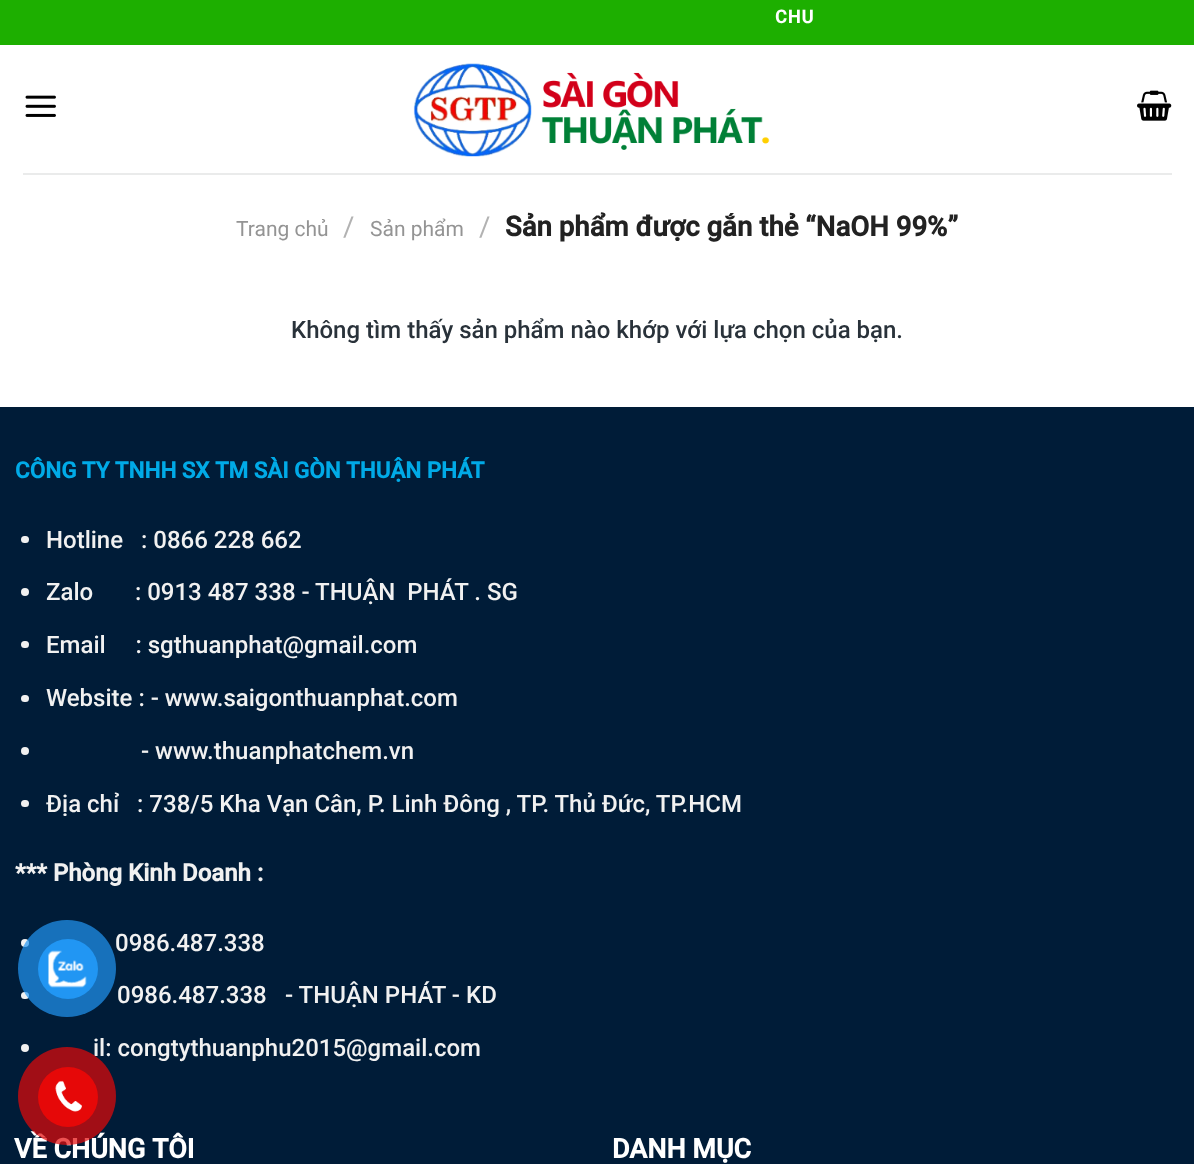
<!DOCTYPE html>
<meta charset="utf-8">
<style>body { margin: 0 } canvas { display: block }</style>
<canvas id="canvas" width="1194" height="1164"></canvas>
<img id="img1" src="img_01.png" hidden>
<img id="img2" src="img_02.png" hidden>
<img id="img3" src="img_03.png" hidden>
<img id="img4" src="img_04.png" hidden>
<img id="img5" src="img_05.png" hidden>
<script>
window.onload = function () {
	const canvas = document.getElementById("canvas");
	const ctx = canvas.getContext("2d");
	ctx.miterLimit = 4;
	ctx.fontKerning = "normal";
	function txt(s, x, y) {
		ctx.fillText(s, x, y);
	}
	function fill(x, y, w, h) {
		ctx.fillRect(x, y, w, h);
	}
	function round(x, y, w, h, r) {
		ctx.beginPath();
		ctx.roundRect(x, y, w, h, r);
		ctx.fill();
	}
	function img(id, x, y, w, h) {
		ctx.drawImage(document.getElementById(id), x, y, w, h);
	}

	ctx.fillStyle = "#FFFFFF";
	fill(0, 0, 1194, 1164);
	ctx.fillStyle = "#1DAF00";
	fill(0, 0, 1194, 45);
	img("img1", 25, 95, 31, 22);
	img("img2", 413, 63, 357, 94);
	img("img3", 1137, 90, 35, 31);
	ctx.fillStyle = "#EAEBEB";
	fill(23, 173, 1149, 2);
	ctx.fillStyle = "#001C38";
	fill(0, 407, 1194, 757);
	ctx.fillStyle = "#F1F1F1";
	round(21, 536, 8, 7, 3.5);
	ctx.beginPath();
	ctx.arc(25, 592, 4, 0, Math.PI * 2);
	ctx.fill();
	round(21, 641, 8, 7, 3.5);
	round(21, 695, 8, 7, 3.5);
	ctx.beginPath();
	ctx.arc(25, 751, 4, 0, Math.PI * 2);
	ctx.fill();
	round(21, 800, 8, 7, 3.5);
	ctx.beginPath();
	ctx.arc(25, 943, 4, 0, Math.PI * 2);
	ctx.fill();
	round(21, 992, 8, 7, 3.5);
	ctx.beginPath();
	ctx.arc(25, 1048, 4, 0, Math.PI * 2);
	ctx.fill();
	ctx.letterSpacing = "1px";
	ctx.font = "bold 18px Roboto";
	ctx.fillStyle = "#FFFFFF";
	txt("CHU", 775, 23);
	ctx.letterSpacing = "0px";
	ctx.font = "21px Roboto";
	ctx.fillStyle = "#949494";
	txt("Trang chủ", 236, 236);
	ctx.font = "27.6px Roboto";
	ctx.fillStyle = "#B2B2B2";
	txt("/", 343, 236);
	ctx.font = "21px Roboto";
	ctx.fillStyle = "#949494";
	txt("Sản phẩm", 370, 236);
	ctx.font = "27.6px Roboto";
	ctx.fillStyle = "#B2B2B2";
	txt("/", 479, 236);
	ctx.font = "bold 27.6px Roboto";
	ctx.fillStyle = "#222222";
	txt("Sản phẩm được gắn thẻ “NaOH 99%”", 505, 236);
	ctx.font = "500 24px Roboto";
	ctx.fillStyle = "#29323A";
	txt("Không tìm thấy sản phẩm nào khớp với lựa chọn của bạn.", 291, 338);
	ctx.wordSpacing = "-0.25px";
	ctx.font = "bold 22.5px Roboto";
	ctx.fillStyle = "#00AAE7";
	txt("CÔNG TY TNHH SX TM SÀI GÒN THUẬN PHÁT", 15, 478);
	ctx.wordSpacing = "0px";
	ctx.font = "500 24px Roboto";
	ctx.fillStyle = "#F1F1F1";
	txt("Hotline   : 0866 228 662", 46, 548);
	txt("Zalo       : 0913 487 338 - THUẬN  PHÁT . SG", 46, 600);
	txt("Email     : sgthuanphat@gmail.com", 46, 653);
	txt("Website : - www.saigonthuanphat.com", 46, 706);
	txt("- www.thuanphatchem.vn", 141, 759);
	txt("Địa chỉ   : 738/5 Kha Vạn Cân, P. Linh Đông , TP. Thủ Đức, TP.HCM", 46, 812);
	ctx.font = "bold 24px Roboto";
	txt("*** Phòng Kinh Doanh :", 15, 881);
	ctx.font = "500 24px Roboto";
	txt("0986.487.338", 115, 951);
	txt("0986.487.338", 117, 1003);
	txt("- THUẬN PHÁT - KD", 285, 1003);
	txt("il: congtythuanphu2015@gmail.com", 93, 1056);
	ctx.font = "bold 27px Roboto";
	ctx.fillStyle = "#FFFFFF";
	txt("VỀ CHÚNG TÔI", 14, 1158);
	txt("DANH MỤC", 612, 1158);
	ctx.fillStyle = "rgba(33, 150, 243, 0.7)";
	round(18, 920, 98, 97, 48.5);
	ctx.fillStyle = "#2196F3";
	ctx.beginPath();
	ctx.arc(68, 969, 30, 0, Math.PI * 2);
	ctx.fill();
	img("img4", 48, 950, 39, 38);
	ctx.fillStyle = "rgba(230, 8, 8, 0.7)";
	ctx.beginPath();
	ctx.arc(67, 1096, 49, 0, Math.PI * 2);
	ctx.fill();
	ctx.fillStyle = "#E60808";
	ctx.beginPath();
	ctx.arc(68, 1097, 30, 0, Math.PI * 2);
	ctx.fill();
	img("img5", 55, 1080, 27, 32);
};
</script>
